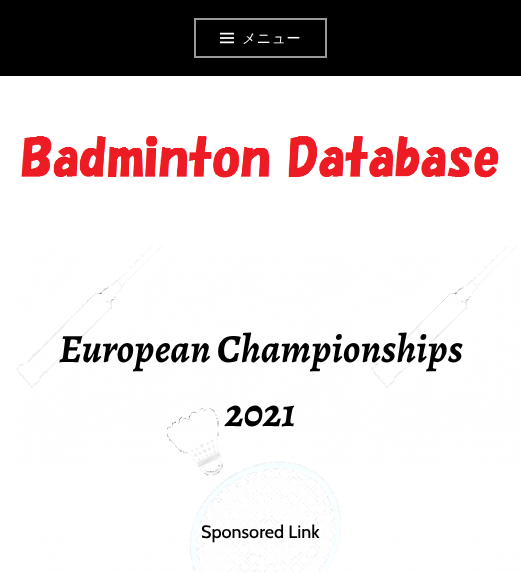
<!DOCTYPE html>
<meta charset="utf-8">
<style>body { margin: 0 } canvas { display: block }</style>
<canvas id="canvas" width="521" height="572"></canvas>
<img id="img1" src="img_01.png" hidden>
<img id="img2" src="img_02.png" hidden>
<img id="img3" src="img_03.png" hidden>
<script>
window.onload = function () {
	const canvas = document.getElementById("canvas");
	const ctx = canvas.getContext("2d");
	ctx.miterLimit = 4;
	ctx.fontKerning = "normal";
	function txt(s, x, y) {
		ctx.fillText(s, x, y);
	}
	function fill(x, y, w, h) {
		ctx.fillRect(x, y, w, h);
	}
	function img(id, x, y, w, h) {
		ctx.drawImage(document.getElementById(id), x, y, w, h);
	}

	ctx.fillStyle = "#FFFFFF";
	fill(0, 0, 521, 572);
	img("img1", 17, 246, 504, 326);
	ctx.fillStyle = "#000000";
	fill(0, 0, 521, 76);
	ctx.strokeStyle = "#999999";
	ctx.lineWidth = 2;
	ctx.strokeRect(195, 19, 131, 38);
	img("img2", 220, 32, 14, 12);
	img("img3", 0, 76, 521, 170);
	ctx.letterSpacing = "0.5px";
	ctx.font = "500 14px WenQuanYi Zen Hei";
	ctx.fillStyle = "#FFFFFF";
	txt("メニュー", 242, 43);
	ctx.letterSpacing = "0px";
	ctx.font = "italic bold 40px Alegreya";
	ctx.fillStyle = "#000000";
	txt("European Championships", 59, 362);
	txt("2021", 225, 426);
	ctx.font = "500 18px Cabin";
	txt("Sponsored Link", 201, 538);
};
</script>
